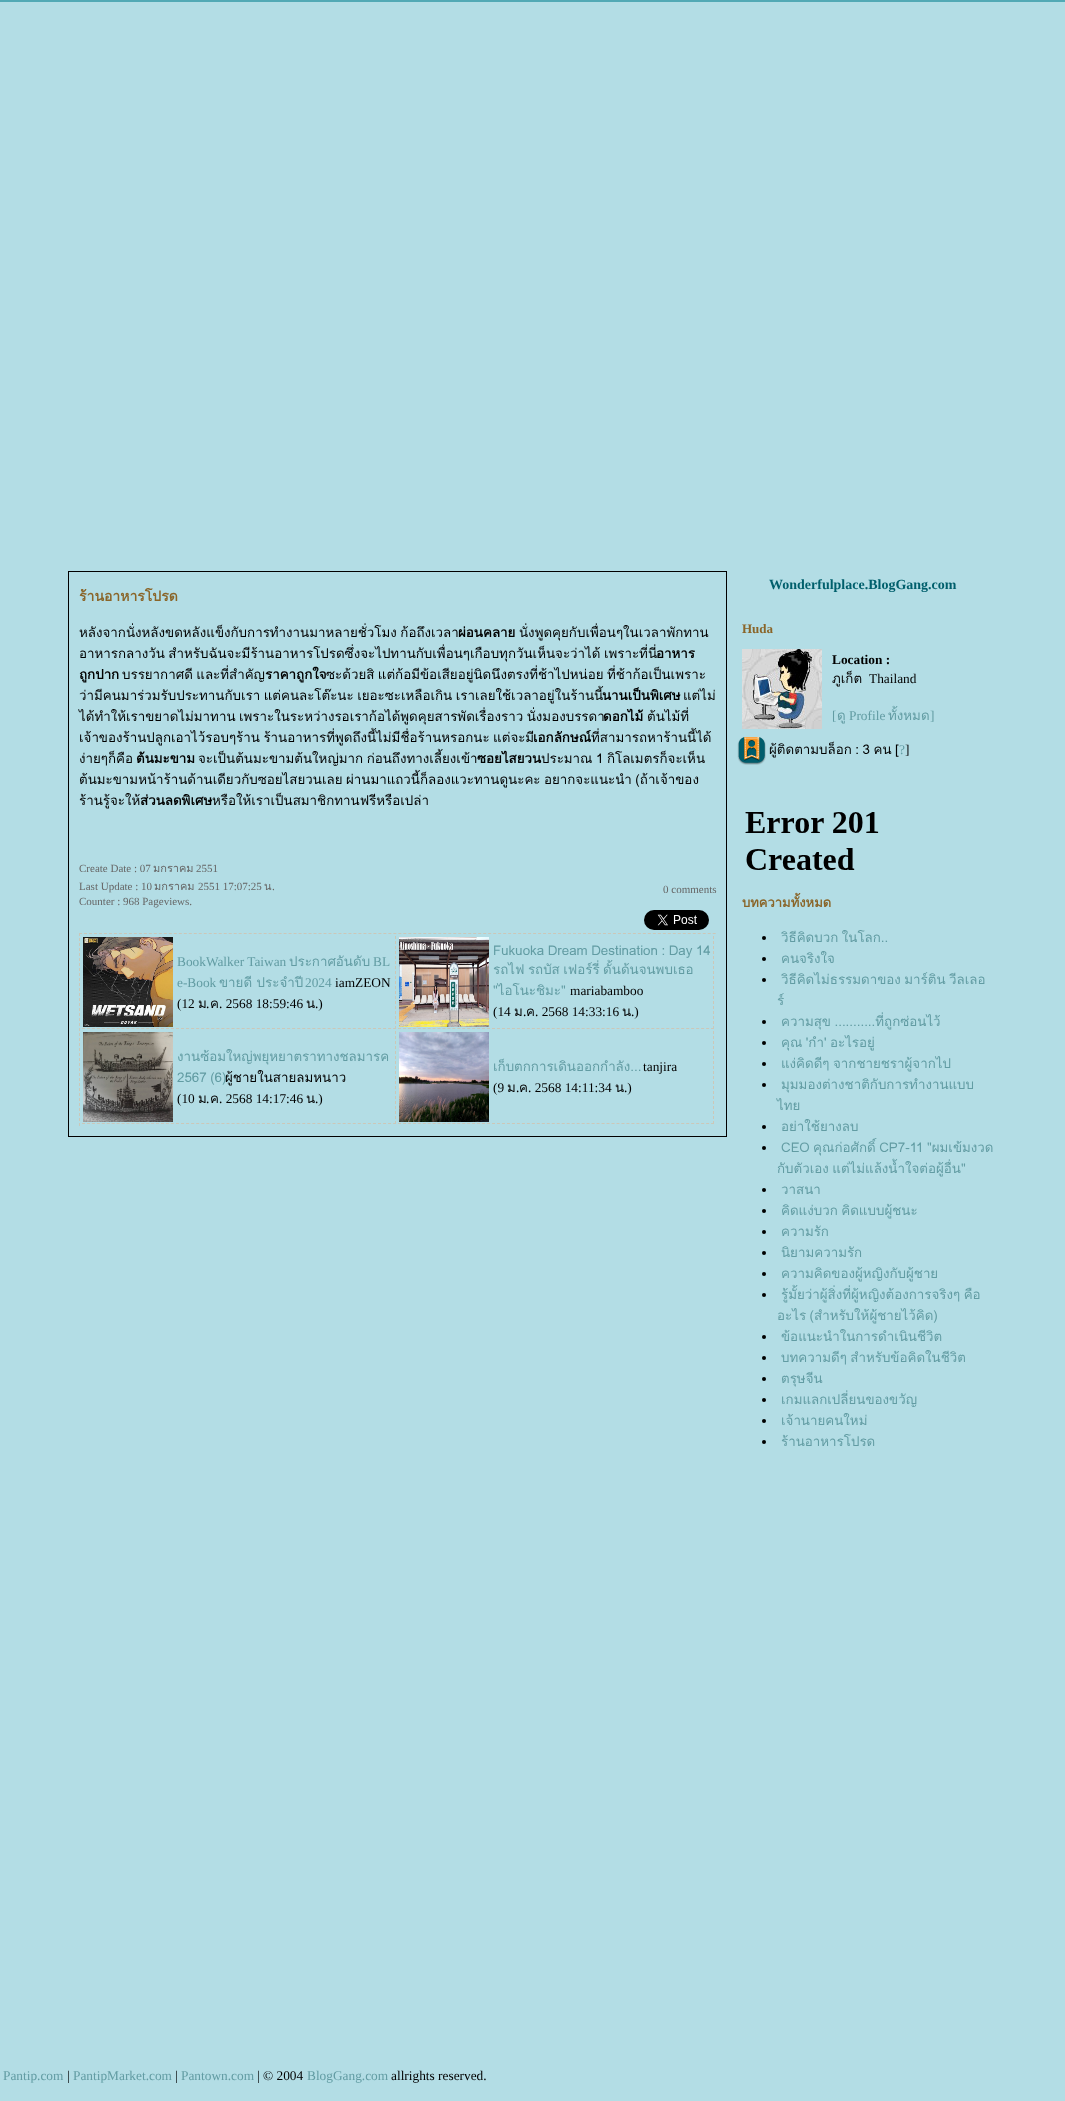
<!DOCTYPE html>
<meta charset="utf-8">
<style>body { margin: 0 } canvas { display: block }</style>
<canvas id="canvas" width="1065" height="2101"></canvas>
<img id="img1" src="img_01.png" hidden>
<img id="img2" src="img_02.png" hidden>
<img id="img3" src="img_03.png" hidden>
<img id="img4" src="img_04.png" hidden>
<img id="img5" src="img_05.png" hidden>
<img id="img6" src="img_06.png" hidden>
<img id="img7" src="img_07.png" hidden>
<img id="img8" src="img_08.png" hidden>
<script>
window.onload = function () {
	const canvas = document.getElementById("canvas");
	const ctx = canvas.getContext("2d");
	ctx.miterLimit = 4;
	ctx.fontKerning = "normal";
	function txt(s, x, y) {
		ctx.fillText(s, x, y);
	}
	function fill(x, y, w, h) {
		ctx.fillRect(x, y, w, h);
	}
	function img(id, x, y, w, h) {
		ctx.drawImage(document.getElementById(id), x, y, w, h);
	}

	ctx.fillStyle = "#B3DDE5";
	fill(0, 0, 1065, 2101);
	ctx.fillStyle = "#52A9B5";
	fill(0, 0, 1065, 2);
	ctx.strokeStyle = "#000000";
	ctx.strokeRect(68.5, 571.5, 658, 565);
	img("img1", 644, 910, 65, 20);
	ctx.beginPath();
	ctx.moveTo(79, 933.5);
	ctx.lineTo(716, 933.5);
	ctx.strokeStyle = "#CCC7B8";
	ctx.setLineDash([3, 1.99]);
	ctx.stroke();
	ctx.beginPath();
	ctx.moveTo(79.5, 933);
	ctx.lineTo(79.5, 1126);
	ctx.setLineDash([3, 2]);
	ctx.stroke();
	ctx.beginPath();
	ctx.moveTo(82, 1028.5);
	ctx.lineTo(174, 1028.5);
	ctx.setLineDash([3, 1.94]);
	ctx.stroke();
	img("img2", 83, 937, 90, 90);
	ctx.beginPath();
	ctx.moveTo(395.5, 936);
	ctx.lineTo(395.5, 1029);
	ctx.setLineDash([3, 2]);
	ctx.stroke();
	ctx.beginPath();
	ctx.moveTo(176, 1028.5);
	ctx.lineTo(396, 1028.5);
	ctx.setLineDash([3, 2.05]);
	ctx.stroke();
	ctx.beginPath();
	ctx.moveTo(398, 1028.5);
	ctx.lineTo(490, 1028.5);
	ctx.setLineDash([3, 1.94]);
	ctx.stroke();
	img("img3", 399, 937, 90, 90);
	ctx.beginPath();
	ctx.moveTo(713.5, 936);
	ctx.lineTo(713.5, 1029);
	ctx.setLineDash([3, 2]);
	ctx.stroke();
	ctx.beginPath();
	ctx.moveTo(492, 1028.5);
	ctx.lineTo(714, 1028.5);
	ctx.setLineDash([3, 1.98]);
	ctx.stroke();
	ctx.beginPath();
	ctx.moveTo(82, 1123.5);
	ctx.lineTo(174, 1123.5);
	ctx.setLineDash([3, 1.94]);
	ctx.stroke();
	img("img4", 83, 1032, 90, 90);
	ctx.beginPath();
	ctx.moveTo(395.5, 1031);
	ctx.lineTo(395.5, 1124);
	ctx.setLineDash([3, 2]);
	ctx.stroke();
	ctx.beginPath();
	ctx.moveTo(176, 1123.5);
	ctx.lineTo(396, 1123.5);
	ctx.setLineDash([3, 2.05]);
	ctx.stroke();
	ctx.beginPath();
	ctx.moveTo(398, 1123.5);
	ctx.lineTo(490, 1123.5);
	ctx.setLineDash([3, 1.94]);
	ctx.stroke();
	img("img5", 399, 1032, 90, 90);
	ctx.beginPath();
	ctx.moveTo(713.5, 1031);
	ctx.lineTo(713.5, 1124);
	ctx.setLineDash([3, 2]);
	ctx.stroke();
	ctx.beginPath();
	ctx.moveTo(492, 1123.5);
	ctx.lineTo(714, 1123.5);
	ctx.setLineDash([3, 1.98]);
	ctx.stroke();
	img("img6", 742, 649, 80, 80);
	img("img7", 737, 737, 29, 28);
	img("img8", 745, 812, 134, 58);
	ctx.fillStyle = "#000000";
	ctx.beginPath();
	ctx.arc(764, 938, 2, 0, Math.PI * 2);
	ctx.fill();
	ctx.beginPath();
	ctx.arc(764, 959, 2, 0, Math.PI * 2);
	ctx.fill();
	ctx.beginPath();
	ctx.arc(764, 980, 2, 0, Math.PI * 2);
	ctx.fill();
	ctx.beginPath();
	ctx.arc(764, 1022, 2, 0, Math.PI * 2);
	ctx.fill();
	ctx.beginPath();
	ctx.arc(764, 1043, 2, 0, Math.PI * 2);
	ctx.fill();
	ctx.beginPath();
	ctx.arc(764, 1064, 2, 0, Math.PI * 2);
	ctx.fill();
	ctx.beginPath();
	ctx.arc(764, 1085, 2, 0, Math.PI * 2);
	ctx.fill();
	ctx.beginPath();
	ctx.arc(764, 1127, 2, 0, Math.PI * 2);
	ctx.fill();
	ctx.beginPath();
	ctx.arc(764, 1148, 2, 0, Math.PI * 2);
	ctx.fill();
	ctx.beginPath();
	ctx.arc(764, 1190, 2, 0, Math.PI * 2);
	ctx.fill();
	ctx.beginPath();
	ctx.arc(764, 1211, 2, 0, Math.PI * 2);
	ctx.fill();
	ctx.beginPath();
	ctx.arc(764, 1232, 2, 0, Math.PI * 2);
	ctx.fill();
	ctx.beginPath();
	ctx.arc(764, 1253, 2, 0, Math.PI * 2);
	ctx.fill();
	ctx.beginPath();
	ctx.arc(764, 1274, 2, 0, Math.PI * 2);
	ctx.fill();
	ctx.beginPath();
	ctx.arc(764, 1295, 2, 0, Math.PI * 2);
	ctx.fill();
	ctx.beginPath();
	ctx.arc(764, 1337, 2, 0, Math.PI * 2);
	ctx.fill();
	ctx.beginPath();
	ctx.arc(764, 1358, 2, 0, Math.PI * 2);
	ctx.fill();
	ctx.beginPath();
	ctx.arc(764, 1379, 2, 0, Math.PI * 2);
	ctx.fill();
	ctx.beginPath();
	ctx.arc(764, 1400, 2, 0, Math.PI * 2);
	ctx.fill();
	ctx.beginPath();
	ctx.arc(764, 1421, 2, 0, Math.PI * 2);
	ctx.fill();
	ctx.beginPath();
	ctx.arc(764, 1442, 2, 0, Math.PI * 2);
	ctx.fill();
	ctx.font = "bold 14px Loma";
	ctx.fillStyle = "#8A6529";
	txt("ร้านอาหารโปรด", 79, 601);
	ctx.wordSpacing = "-1px";
	ctx.font = "13.35px Loma";
	ctx.fillStyle = "#000000";
	txt("หลังจากนั่งหลังขดหลังแข็งกับการทำงานมาหลายชั่วโมง ก้อถึงเวลา", 79, 637);
	ctx.wordSpacing = "0px";
	ctx.font = "bold 13.35px Loma";
	txt("ผ่อนคลาย", 458, 637);
	ctx.font = "13.35px Loma";
	txt("นั่งพูดคุยกับเพื่อนๆในเวลาพักทาน", 519, 637);
	ctx.wordSpacing = "-1px";
	txt("อาหารกลางวัน สำหรับฉันจะมีร้านอาหารโปรดซึ่งจะไปทานกับเพื่อนๆเกือบทุกวันเห็นจะว่าได้ เพราะที่นี่", 79, 658);
	ctx.wordSpacing = "0px";
	ctx.font = "bold 13.35px Loma";
	txt("อาหาร", 656, 658);
	txt("ถูกปาก", 79, 679);
	ctx.wordSpacing = "-1px";
	ctx.font = "13.35px Loma";
	txt("บรรยากาศดี และที่สำคัญ", 122, 679);
	ctx.wordSpacing = "0px";
	ctx.font = "bold 13.35px Loma";
	txt("ราคาถูกใจ", 265, 679);
	ctx.wordSpacing = "-1px";
	ctx.font = "13.35px Loma";
	txt("ซะด้วยสิ แต่ก้อมีข้อเสียอยู่นิดนึงตรงที่ช้าไปหน่อย ที่ช้าก้อเป็นเพราะ", 326, 679);
	txt("ว่ามีคนมาร่วมรับประทานกับเรา แต่คนละโต๊ะนะ เยอะซะเหลือเกิน เราเลยใช้เวลาอยู่ในร้านนี้", 79, 700);
	ctx.wordSpacing = "0px";
	ctx.font = "bold 13.35px Loma";
	txt("นานเป็นพิเศษ", 602, 700);
	ctx.font = "13.35px Loma";
	txt("แต่ไม่", 683, 700);
	ctx.wordSpacing = "-1px";
	txt("ได้ทำให้เราขยาดไม่มาทาน เพราะในระหว่างรอเราก้อได้พูดคุยสารพัดเรื่องราว นั่งมองบรรดา", 79, 721);
	ctx.wordSpacing = "0px";
	ctx.font = "bold 13.35px Loma";
	txt("ดอกไม้", 603, 721);
	ctx.font = "13.35px Loma";
	txt("ต้นไม้ที่", 647, 721);
	ctx.wordSpacing = "-1px";
	txt("เจ้าของร้านปลูกเอาไว้รอบๆร้าน ร้านอาหารที่พูดถึงนี้ไม่มีชื่อร้านหรอกนะ แต่จะมี", 79, 742);
	ctx.wordSpacing = "0px";
	ctx.font = "bold 13.35px Loma";
	txt("เอกลักษณ์", 533, 742);
	ctx.font = "13.35px Loma";
	txt("ที่สามารถหาร้านนี้ได้", 591, 742);
	txt("ง่ายๆก็คือ", 79, 763);
	ctx.font = "bold 13.35px Loma";
	txt("ต้นมะขาม", 136, 763);
	ctx.wordSpacing = "-1px";
	ctx.font = "13.35px Loma";
	txt("จะเป็นต้นมะขามต้นใหญ่มาก ก่อนถึงทางเลี้ยงเข้า", 198, 763);
	ctx.wordSpacing = "0px";
	ctx.font = "bold 13.35px Loma";
	txt("ซอยไสยวน", 477, 763);
	ctx.wordSpacing = "-1px";
	ctx.font = "13.35px Loma";
	txt("ประมาณ 1 กิโลเมตรก็จะเห็น", 541, 763);
	txt("ต้นมะขามหน้าร้านด้านเดียวกับซอยไสยวนเลย ผ่านมาแถวนี้ก็ลองแวะทานดูนะคะ อยากจะแนะนำ (ถ้าเจ้าของ", 79, 784);
	ctx.wordSpacing = "0px";
	txt("ร้านรู้จะให้", 79, 805);
	ctx.font = "bold 13.35px Loma";
	txt("ส่วนลดพิเศษ", 140, 805);
	ctx.font = "13.35px Loma";
	txt("หรือให้เราเป็นสมาชิกทานฟรีหรือเปล่า", 212, 805);
	ctx.font = "11px Liberation Serif";
	ctx.fillStyle = "#666666";
	txt("Create Date : 07", 79, 872);
	ctx.font = "11px Loma";
	txt("มกราคม", 153, 872);
	ctx.font = "11px Liberation Serif";
	txt("2551", 196, 872);
	txt("Last Update : 10", 79, 890);
	ctx.font = "11px Loma";
	txt("มกราคม", 154, 890);
	ctx.font = "11px Liberation Serif";
	txt("2551 17:07:25", 198, 890);
	ctx.font = "11px Loma";
	txt("น", 264, 890);
	ctx.font = "11px Liberation Serif";
	txt(".", 272, 890);
	txt("Counter : 968 Pageviews.", 79, 905);
	txt("0 comments", 663, 893);
	ctx.font = "13.35px Liberation Serif";
	ctx.fillStyle = "#629CA3";
	txt("BookWalker Taiwan", 177, 966);
	ctx.font = "13.35px Loma";
	txt("ประกาศอันดับ", 289, 966);
	ctx.font = "13.35px Liberation Serif";
	txt("BL", 373, 966);
	txt("e-Book", 177, 987);
	ctx.font = "13.35px Loma";
	txt("ขายดี ประจำปี", 219, 987);
	ctx.font = "13.35px Liberation Serif";
	txt("2024", 305, 987);
	ctx.fillStyle = "#000000";
	txt("iamZEON", 335, 987);
	txt("(12", 177, 1008);
	ctx.font = "13.35px Loma";
	txt("ม", 198, 1008);
	ctx.font = "13.35px Liberation Serif";
	txt(".", 206, 1008);
	ctx.font = "13.35px Loma";
	txt("ค", 210, 1008);
	ctx.font = "13.35px Liberation Serif";
	txt(". 2568 18:59:46", 219, 1008);
	ctx.font = "13.35px Loma";
	txt("น", 306, 1008);
	ctx.font = "13.35px Liberation Serif";
	txt(".)", 315, 1008);
	ctx.wordSpacing = "-1px";
	ctx.font = "13.35px Loma";
	ctx.fillStyle = "#629CA3";
	txt("Fukuoka Dream Destination : Day 14", 493, 955);
	txt("รถไฟ รถบัส เฟอร์รี่ ดั้นด้นจนพบเธอ", 493, 974);
	ctx.wordSpacing = "0px";
	txt("\"ไอโนะชิมะ\"", 493, 995);
	ctx.font = "13.35px Liberation Serif";
	ctx.fillStyle = "#000000";
	txt("mariabamboo", 570, 995);
	txt("(14", 493, 1016);
	ctx.font = "13.35px Loma";
	txt("ม", 514, 1016);
	ctx.font = "13.35px Liberation Serif";
	txt(".", 523, 1016);
	ctx.font = "13.35px Loma";
	txt("ค", 526, 1016);
	ctx.font = "13.35px Liberation Serif";
	txt(". 2568 14:33:16", 535, 1016);
	ctx.font = "13.35px Loma";
	txt("น", 622, 1016);
	ctx.font = "13.35px Liberation Serif";
	txt(".)", 631, 1016);
	ctx.font = "13.35px Loma";
	ctx.fillStyle = "#629CA3";
	txt("งานซ้อมใหญ่พยุหยาตราทางชลมารค", 177, 1061);
	ctx.wordSpacing = "-1px";
	txt("2567 (6)", 177, 1082);
	ctx.wordSpacing = "0px";
	ctx.fillStyle = "#000000";
	txt("ผู้ชายในสายลมหนาว", 225, 1082);
	ctx.font = "13.35px Liberation Serif";
	txt("(10", 177, 1103);
	ctx.font = "13.35px Loma";
	txt("ม", 198, 1103);
	ctx.font = "13.35px Liberation Serif";
	txt(".", 206, 1103);
	ctx.font = "13.35px Loma";
	txt("ค", 210, 1103);
	ctx.font = "13.35px Liberation Serif";
	txt(". 2568 14:17:46", 219, 1103);
	ctx.font = "13.35px Loma";
	txt("น", 306, 1103);
	ctx.font = "13.35px Liberation Serif";
	txt(".)", 315, 1103);
	ctx.font = "13.35px Loma";
	ctx.fillStyle = "#629CA3";
	txt("เก็บตกการเดินออกกำลัง...", 493, 1071);
	ctx.font = "13.35px Liberation Serif";
	ctx.fillStyle = "#000000";
	txt("tanjira", 643, 1071);
	txt("(9", 493, 1092);
	ctx.font = "13.35px Loma";
	txt("ม", 507, 1092);
	ctx.font = "13.35px Liberation Serif";
	txt(".", 516, 1092);
	ctx.font = "13.35px Loma";
	txt("ค", 519, 1092);
	ctx.font = "13.35px Liberation Serif";
	txt(". 2568 14:11:34", 528, 1092);
	ctx.font = "13.35px Loma";
	txt("น", 615, 1092);
	ctx.font = "13.35px Liberation Serif";
	txt(".)", 624, 1092);
	ctx.font = "bold 14px Liberation Serif";
	ctx.fillStyle = "#005F6C";
	txt("Wonderfulplace.BlogGang.com", 769, 589);
	ctx.font = "bold 13px Liberation Serif";
	ctx.fillStyle = "#8A6529";
	txt("Huda", 742, 633);
	ctx.font = "bold 13.35px Liberation Serif";
	ctx.fillStyle = "#000000";
	txt("Location :", 832, 664);
	ctx.font = "13.35px Loma";
	txt("ภูเก็ต", 832, 683);
	ctx.font = "13.35px Liberation Serif";
	txt("Thailand", 869, 683);
	ctx.fillStyle = "#629CA3";
	txt("[", 832, 720);
	txt("Profile", 849, 720);
	ctx.font = "13.35px Loma";
	txt("ทั้งหมด", 888, 720);
	ctx.font = "13.35px Liberation Serif";
	txt("]", 930, 720);
	ctx.font = "13.35px Loma";
	txt("ดู", 837, 720);
	ctx.wordSpacing = "-1px";
	ctx.fillStyle = "#000000";
	txt("ผู้ติดตามบล็อก : 3 คน [", 769, 754);
	ctx.wordSpacing = "0px";
	ctx.font = "13.35px Liberation Serif";
	ctx.fillStyle = "#629CA3";
	txt("?", 899, 754);
	ctx.fillStyle = "#000000";
	txt("]", 905, 754);
	ctx.font = "bold 13px Loma";
	ctx.fillStyle = "#8A6529";
	txt("บทความทั้งหมด", 742, 907);
	ctx.wordSpacing = "-1px";
	ctx.font = "13.35px Loma";
	ctx.fillStyle = "#629CA3";
	txt("วิธีคิดบวก ในโลก..", 781, 942);
	ctx.wordSpacing = "0px";
	txt("คนจริงใจ", 781, 963);
	ctx.wordSpacing = "-1px";
	txt("วิธีคิดไม่ธรรมดาของ มาร์ติน วีลเลอ", 781, 984);
	ctx.wordSpacing = "0px";
	txt("ร์", 777, 1005);
	ctx.wordSpacing = "-1px";
	txt("ความสุข ...........ที่ถูกซ่อนไว้", 781, 1026);
	txt("คุณ 'กำ' อะไรอยู่", 781, 1047);
	txt("แง่คิดดีๆ จากชายชราผู้จากไป", 781, 1068);
	ctx.wordSpacing = "0px";
	txt("มุมมองต่างชาติกับการทำงานแบบ", 781, 1089);
	txt("ไทย", 777, 1110);
	txt("อย่าใช้ยางลบ", 781, 1131);
	ctx.wordSpacing = "-1px";
	txt("CEO คุณก่อศักดิ์ CP7-11 \"ผมเข้มงวด", 781, 1152);
	txt("กับตัวเอง แต่ไม่แล้งน้ำใจต่อผู้อื่น\"", 777, 1173);
	ctx.wordSpacing = "0px";
	txt("วาสนา", 781, 1194);
	ctx.wordSpacing = "-1px";
	txt("คิดแง่บวก คิดแบบผู้ชนะ", 781, 1215);
	ctx.wordSpacing = "0px";
	txt("ความรัก", 781, 1236);
	txt("นิยามความรัก", 781, 1257);
	txt("ความคิดของผู้หญิงกับผู้ชาย", 781, 1278);
	ctx.wordSpacing = "-1px";
	txt("รู้มั้ยว่าผู้สิ่งที่ผู้หญิงต้องการจริงๆ คือ", 781, 1299);
	txt("อะไร (สำหรับให้ผู้ชายไว้คิด)", 777, 1320);
	ctx.wordSpacing = "0px";
	txt("ข้อแนะนำในการดำเนินชีวิต", 781, 1341);
	ctx.wordSpacing = "-1px";
	txt("บทความดีๆ สำหรับข้อคิดในชีวิต", 781, 1362);
	ctx.wordSpacing = "0px";
	txt("ตรุษจีน", 781, 1383);
	txt("เกมแลกเปลี่ยนของขวัญ", 781, 1404);
	txt("เจ้านายคนใหม่", 781, 1425);
	txt("ร้านอาหารโปรด", 781, 1446);
	ctx.font = "13.35px Liberation Serif";
	txt("Pantip.com", 3, 2080);
	ctx.fillStyle = "#000000";
	txt("|", 67, 2080);
	ctx.fillStyle = "#629CA3";
	txt("PantipMarket.com", 73, 2080);
	ctx.fillStyle = "#000000";
	txt("|", 175, 2080);
	ctx.fillStyle = "#629CA3";
	txt("Pantown.com", 181, 2080);
	ctx.fillStyle = "#000000";
	txt("| © 2004", 257, 2080);
	ctx.fillStyle = "#629CA3";
	txt("BlogGang.com", 307, 2080);
	ctx.fillStyle = "#000000";
	txt("allrights reserved.", 391, 2080);
};
</script>
